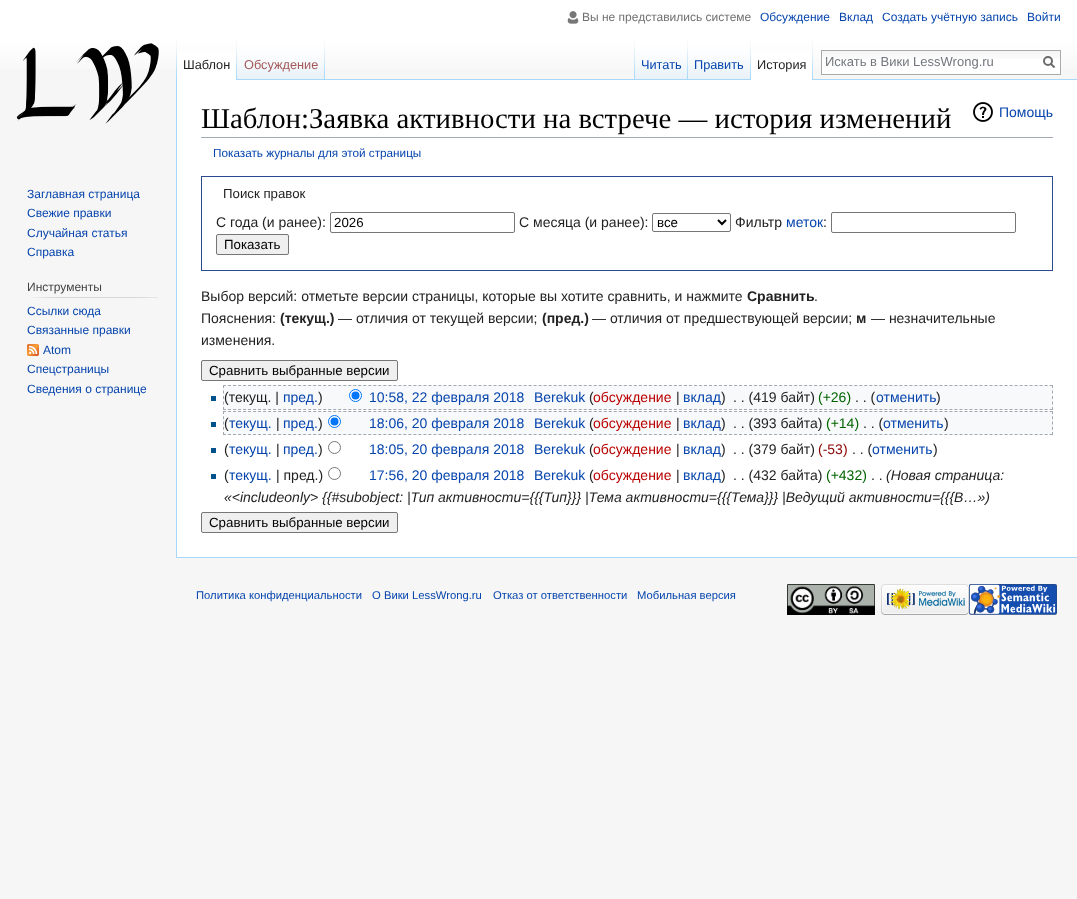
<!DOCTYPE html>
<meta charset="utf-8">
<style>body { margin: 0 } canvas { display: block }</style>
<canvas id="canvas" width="1077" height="899"></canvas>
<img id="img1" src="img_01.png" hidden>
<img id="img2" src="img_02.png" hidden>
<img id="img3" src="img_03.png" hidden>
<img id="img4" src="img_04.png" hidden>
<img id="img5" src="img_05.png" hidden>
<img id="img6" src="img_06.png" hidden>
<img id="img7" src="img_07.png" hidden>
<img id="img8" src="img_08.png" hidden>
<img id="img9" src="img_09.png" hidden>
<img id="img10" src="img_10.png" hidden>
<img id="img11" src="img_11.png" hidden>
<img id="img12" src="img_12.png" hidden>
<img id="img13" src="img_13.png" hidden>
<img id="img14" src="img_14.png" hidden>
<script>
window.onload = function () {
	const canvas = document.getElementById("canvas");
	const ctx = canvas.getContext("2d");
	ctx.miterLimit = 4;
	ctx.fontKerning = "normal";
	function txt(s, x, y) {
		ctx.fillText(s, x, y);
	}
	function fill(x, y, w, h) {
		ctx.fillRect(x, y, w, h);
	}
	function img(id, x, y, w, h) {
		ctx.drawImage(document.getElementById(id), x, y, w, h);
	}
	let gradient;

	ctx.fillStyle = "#F6F6F6";
	fill(0, 0, 1077, 899);
	gradient = ctx.createLinearGradient(539, 0, 539, 80);
	gradient.addColorStop(0.5, "#FFFFFF");
	gradient.addColorStop(1, "#F6F6F6");
	ctx.fillStyle = gradient;
	fill(0, 0, 1077, 69);
	img("img1", 567, 11, 12, 13);
	img("img2", 176, 40, 1, 39);
	ctx.fillStyle = "#FFFFFF";
	fill(177, 51, 59, 29);
	img("img3", 236, 40, 1, 40);
	img("img4", 237, 40, 88, 40);
	img("img2", 324, 40, 1, 39);
	img("img2", 634, 40, 1, 39);
	ctx.fillStyle = "#A7D7F9";
	fill(325, 79, 752, 1);
	img("img5", 635, 40, 53, 40);
	img("img2", 687, 40, 1, 39);
	img("img6", 688, 40, 63, 40);
	img("img2", 750, 40, 1, 39);
	ctx.fillStyle = "#FFFFFF";
	fill(751, 51, 61, 29);
	img("img3", 812, 40, 1, 40);
	fill(822, 59, 238, 15);
	img("img7", 822, 51, 238, 8);
	ctx.strokeStyle = "#AAAAAA";
	ctx.strokeRect(821.5, 50.5, 239, 24);
	ctx.beginPath();
	ctx.moveTo(1054.5, 67.5);
	ctx.lineTo(1050.5, 63.5);
	ctx.strokeStyle = "#6C6C6C";
	ctx.lineWidth = 2;
	ctx.stroke();
	ctx.beginPath();
	ctx.arc(1048, 61, 4, 0, Math.PI * 2);
	ctx.stroke();
	img("img8", 16, 43, 143, 81);
	img("img9", 30, 297, 128, 1);
	img("img10", 27, 344, 12, 12);
	fill(177, 80, 900, 477);
	ctx.fillStyle = "#A7D7F9";
	fill(176, 557, 901, 1);
	fill(176, 79, 1, 479);
	ctx.fillStyle = "#A2A9B1";
	fill(201, 137, 852, 1);
	img("img11", 973, 102, 20, 20);
	ctx.strokeStyle = "#2A4B8D";
	ctx.lineWidth = 1;
	ctx.strokeRect(201.5, 176.5, 851, 94);
	ctx.beginPath();
	ctx.roundRect(330.5, 212.5, 184, 20, 1.5);
	ctx.strokeStyle = "#767676";
	ctx.stroke();
	ctx.beginPath();
	ctx.roundRect(652.5, 213.5, 78, 18, 1.5);
	ctx.stroke();
	ctx.beginPath();
	ctx.moveTo(718, 220);
	ctx.lineTo(722, 224);
	ctx.lineTo(726, 220);
	ctx.strokeStyle = "#000000";
	ctx.lineWidth = 2;
	ctx.stroke();
	ctx.beginPath();
	ctx.roundRect(831.5, 212.5, 184, 20, 1.5);
	ctx.strokeStyle = "#767676";
	ctx.lineWidth = 1;
	ctx.stroke();
	ctx.fillStyle = "#EFEFEF";
	ctx.beginPath();
	ctx.roundRect(216.5, 234.5, 72, 20, 1.5);
	ctx.fill();
	ctx.stroke();
	ctx.beginPath();
	ctx.roundRect(201.5, 360.5, 196, 20, 1.5);
	ctx.fill();
	ctx.stroke();
	ctx.fillStyle = "#F8F9FA";
	fill(223, 385, 830, 25);
	ctx.beginPath();
	ctx.moveTo(223, 385.5);
	ctx.lineTo(1053, 385.5);
	ctx.strokeStyle = "#A2A9B1";
	ctx.setLineDash([3, 2.01]);
	ctx.stroke();
	ctx.beginPath();
	ctx.moveTo(1052.5, 385);
	ctx.lineTo(1052.5, 410);
	ctx.setLineDash([3, 2.5]);
	ctx.stroke();
	ctx.beginPath();
	ctx.moveTo(223, 409.5);
	ctx.lineTo(1053, 409.5);
	ctx.setLineDash([3, 2.01]);
	ctx.stroke();
	ctx.beginPath();
	ctx.moveTo(223.5, 385);
	ctx.lineTo(223.5, 410);
	ctx.setLineDash([3, 2.5]);
	ctx.stroke();
	ctx.fillStyle = "#00528C";
	fill(211, 396, 5, 5);
	ctx.fillStyle = "#FFFFFF";
	ctx.beginPath();
	ctx.arc(355.5, 395.5, 6, 0, Math.PI * 2);
	ctx.fill();
	ctx.strokeStyle = "#0075FF";
	ctx.setLineDash([]);
	ctx.stroke();
	ctx.fillStyle = "#0075FF";
	ctx.beginPath();
	ctx.arc(355.5, 395.5, 4, 0, Math.PI * 2);
	ctx.fill();
	ctx.fillStyle = "#F8F9FA";
	fill(223, 411, 830, 24);
	ctx.beginPath();
	ctx.moveTo(223, 411.5);
	ctx.lineTo(1053, 411.5);
	ctx.strokeStyle = "#A2A9B1";
	ctx.setLineDash([3, 2.01]);
	ctx.stroke();
	ctx.beginPath();
	ctx.moveTo(1052.5, 411);
	ctx.lineTo(1052.5, 435);
	ctx.setLineDash([3, 2.25]);
	ctx.stroke();
	ctx.beginPath();
	ctx.moveTo(223, 434.5);
	ctx.lineTo(1053, 434.5);
	ctx.setLineDash([3, 2.01]);
	ctx.stroke();
	ctx.beginPath();
	ctx.moveTo(223.5, 411);
	ctx.lineTo(223.5, 435);
	ctx.setLineDash([3, 2.25]);
	ctx.stroke();
	ctx.fillStyle = "#00528C";
	fill(211, 422, 5, 5);
	ctx.fillStyle = "#FFFFFF";
	ctx.beginPath();
	ctx.arc(334.5, 421.5, 6, 0, Math.PI * 2);
	ctx.fill();
	ctx.strokeStyle = "#0075FF";
	ctx.setLineDash([]);
	ctx.stroke();
	ctx.fillStyle = "#0075FF";
	ctx.beginPath();
	ctx.arc(334.5, 421.5, 4, 0, Math.PI * 2);
	ctx.fill();
	ctx.fillStyle = "#00528C";
	fill(211, 448, 5, 5);
	ctx.beginPath();
	ctx.arc(334.5, 447.5, 6, 0, Math.PI * 2);
	ctx.strokeStyle = "#767676";
	ctx.stroke();
	fill(211, 474, 5, 5);
	ctx.beginPath();
	ctx.arc(334.5, 473.5, 6, 0, Math.PI * 2);
	ctx.stroke();
	ctx.fillStyle = "#EFEFEF";
	ctx.beginPath();
	ctx.roundRect(201.5, 512.5, 196, 20, 1.5);
	ctx.fill();
	ctx.stroke();
	img("img12", 787, 584, 88, 31);
	img("img13", 881, 584, 88, 31);
	img("img14", 969, 584, 88, 31);
	ctx.font = "12px Liberation Sans";
	ctx.fillStyle = "#707070";
	txt("Вы не представились системе", 582, 21);
	ctx.fillStyle = "#0645AD";
	txt("Обсуждение", 760, 21);
	txt("Вклад", 839, 21);
	txt("Создать учётную запись", 882, 21);
	txt("Войти", 1027, 21);
	ctx.font = "12.75px Liberation Sans";
	ctx.fillStyle = "#222222";
	txt("Шаблон", 183, 69);
	ctx.fillStyle = "#A55858";
	txt("Обсуждение", 244, 69);
	ctx.fillStyle = "#0645AD";
	txt("Читать", 641, 69);
	txt("Править", 694, 69);
	ctx.fillStyle = "#222222";
	txt("История", 757, 69);
	ctx.font = "13px Liberation Sans";
	ctx.fillStyle = "#72777D";
	txt("Искать в Вики LessWrong.ru", 825, 66);
	ctx.font = "12px Liberation Sans";
	ctx.fillStyle = "#0645AD";
	txt("Заглавная страница", 27, 198);
	txt("Свежие правки", 27, 217);
	txt("Случайная статья", 27, 237);
	txt("Справка", 27, 256);
	ctx.fillStyle = "#444444";
	txt("Инструменты", 27, 291);
	ctx.fillStyle = "#0645AD";
	txt("Ссылки сюда", 27, 315);
	txt("Связанные правки", 27, 334);
	txt("Atom", 43, 354);
	txt("Спецстраницы", 27, 373);
	txt("Сведения о странице", 27, 393);
	ctx.font = "28.8px Liberation Serif";
	ctx.fillStyle = "#000000";
	txt("Шаблон:Заявка активности на встрече — история изменений", 201, 128);
	ctx.font = "14px Liberation Sans";
	ctx.fillStyle = "#0645AD";
	txt("Помощь", 999, 117);
	ctx.font = "11.75px Liberation Sans";
	txt("Показать журналы для этой страницы", 213, 157);
	ctx.font = "13.25px Liberation Sans";
	ctx.fillStyle = "#222222";
	txt("Поиск правок", 223, 198);
	ctx.font = "14px Liberation Sans";
	txt("С года (и ранее):", 216, 227);
	ctx.font = "13.3px Liberation Sans";
	ctx.fillStyle = "#000000";
	txt("2026", 334, 227);
	ctx.font = "14px Liberation Sans";
	ctx.fillStyle = "#222222";
	txt("С месяца (и ранее):", 519, 227);
	ctx.font = "13.3px Liberation Sans";
	ctx.fillStyle = "#000000";
	txt("все", 657, 227);
	ctx.font = "14px Liberation Sans";
	ctx.fillStyle = "#222222";
	txt("Фильтр", 735, 227);
	ctx.fillStyle = "#0645AD";
	txt("меток", 786, 227);
	ctx.fillStyle = "#222222";
	txt(":", 823, 227);
	ctx.font = "13.3px Liberation Sans";
	ctx.fillStyle = "#000000";
	txt("Показать", 224, 249);
	ctx.font = "14px Liberation Sans";
	ctx.fillStyle = "#222222";
	txt("Выбор версий: отметьте версии страницы, которые вы хотите сравнить, и нажмите", 201, 301);
	ctx.font = "bold 14px Liberation Sans";
	txt("Сравнить", 747, 301);
	ctx.font = "14px Liberation Sans";
	txt(".", 814, 301);
	txt("Пояснения:", 201, 323);
	ctx.font = "bold 14px Liberation Sans";
	txt("(текущ.)", 280, 323);
	ctx.font = "14px Liberation Sans";
	txt("— отличия от текущей версии;", 338, 323);
	ctx.font = "bold 14px Liberation Sans";
	txt("(пред.)", 542, 323);
	ctx.font = "14px Liberation Sans";
	txt("— отличия от предшествующей версии;", 592, 323);
	ctx.font = "bold 14px Liberation Sans";
	txt("м", 856, 323);
	ctx.font = "14px Liberation Sans";
	txt("— незначительные", 871, 323);
	txt("изменения.", 201, 345);
	ctx.font = "13.3px Liberation Sans";
	ctx.fillStyle = "#000000";
	txt("Сравнить выбранные версии", 209, 375);
	ctx.font = "14px Liberation Sans";
	ctx.fillStyle = "#222222";
	txt("(текущ. |", 224, 402);
	ctx.fillStyle = "#0645AD";
	txt("пред.", 283, 402);
	ctx.fillStyle = "#222222";
	txt(")", 318, 402);
	ctx.fillStyle = "#0645AD";
	txt("10:58, 22 февраля 2018", 369, 402);
	txt("Berekuk", 534, 402);
	ctx.fillStyle = "#222222";
	txt("(", 589, 402);
	ctx.fillStyle = "#BA0000";
	txt("обсуждение", 593, 402);
	ctx.fillStyle = "#222222";
	txt("|", 676, 402);
	ctx.fillStyle = "#0645AD";
	txt("вклад", 683, 402);
	ctx.fillStyle = "#222222";
	txt(")", 721, 402);
	txt(". . (419 байт)", 733, 402);
	ctx.fillStyle = "#006400";
	txt("(+26)", 818, 402);
	ctx.fillStyle = "#222222";
	txt(". . (", 855, 402);
	ctx.fillStyle = "#0645AD";
	txt("отменить", 876, 402);
	ctx.fillStyle = "#222222";
	txt(")", 936, 402);
	txt("(", 224, 428);
	ctx.fillStyle = "#0645AD";
	txt("текущ.", 229, 428);
	ctx.fillStyle = "#222222";
	txt("|", 276, 428);
	ctx.fillStyle = "#0645AD";
	txt("пред.", 283, 428);
	ctx.fillStyle = "#222222";
	txt(")", 318, 428);
	ctx.fillStyle = "#0645AD";
	txt("18:06, 20 февраля 2018", 369, 428);
	txt("Berekuk", 534, 428);
	ctx.fillStyle = "#222222";
	txt("(", 589, 428);
	ctx.fillStyle = "#BA0000";
	txt("обсуждение", 593, 428);
	ctx.fillStyle = "#222222";
	txt("|", 676, 428);
	ctx.fillStyle = "#0645AD";
	txt("вклад", 683, 428);
	ctx.fillStyle = "#222222";
	txt(")", 721, 428);
	txt(". . (393 байта)", 733, 428);
	ctx.fillStyle = "#006400";
	txt("(+14)", 826, 428);
	ctx.fillStyle = "#222222";
	txt(". . (", 863, 428);
	ctx.fillStyle = "#0645AD";
	txt("отменить", 883, 428);
	ctx.fillStyle = "#222222";
	txt(")", 944, 428);
	txt("(", 224, 454);
	ctx.fillStyle = "#0645AD";
	txt("текущ.", 229, 454);
	ctx.fillStyle = "#222222";
	txt("|", 276, 454);
	ctx.fillStyle = "#0645AD";
	txt("пред.", 283, 454);
	ctx.fillStyle = "#222222";
	txt(")", 318, 454);
	ctx.fillStyle = "#0645AD";
	txt("18:05, 20 февраля 2018", 369, 454);
	txt("Berekuk", 534, 454);
	ctx.fillStyle = "#222222";
	txt("(", 589, 454);
	ctx.fillStyle = "#BA0000";
	txt("обсуждение", 593, 454);
	ctx.fillStyle = "#222222";
	txt("|", 676, 454);
	ctx.fillStyle = "#0645AD";
	txt("вклад", 683, 454);
	ctx.fillStyle = "#222222";
	txt(")", 721, 454);
	txt(". . (379 байт)", 733, 454);
	ctx.fillStyle = "#8B0000";
	txt("(-53)", 818, 454);
	ctx.fillStyle = "#222222";
	txt(". . (", 852, 454);
	ctx.fillStyle = "#0645AD";
	txt("отменить", 872, 454);
	ctx.fillStyle = "#222222";
	txt(")", 933, 454);
	txt("(", 224, 480);
	ctx.fillStyle = "#0645AD";
	txt("текущ.", 229, 480);
	ctx.fillStyle = "#222222";
	txt("| пред.)", 276, 480);
	ctx.fillStyle = "#0645AD";
	txt("17:56, 20 февраля 2018", 369, 480);
	txt("Berekuk", 534, 480);
	ctx.fillStyle = "#222222";
	txt("(", 589, 480);
	ctx.fillStyle = "#BA0000";
	txt("обсуждение", 593, 480);
	ctx.fillStyle = "#222222";
	txt("|", 676, 480);
	ctx.fillStyle = "#0645AD";
	txt("вклад", 683, 480);
	ctx.fillStyle = "#222222";
	txt(")", 721, 480);
	txt(". . (432 байта)", 733, 480);
	ctx.fillStyle = "#006400";
	txt("(+432)", 826, 480);
	ctx.fillStyle = "#222222";
	txt(". .", 871, 480);
	ctx.font = "italic 14px Liberation Sans";
	txt("(Новая страница:", 886, 480);
	txt("«<includeonly> {{#subobject: |Тип активности={{{Тип}}} |Тема активности={{{Тема}}} |Ведущий активности={{{В…»)", 224, 502);
	ctx.font = "13.3px Liberation Sans";
	ctx.fillStyle = "#000000";
	txt("Сравнить выбранные версии", 209, 527);
	ctx.font = "11.25px Liberation Sans";
	ctx.fillStyle = "#0645AD";
	txt("Политика конфиденциальности", 196, 599);
	txt("О Вики LessWrong.ru", 372, 599);
	txt("Отказ от ответственности", 493, 599);
	txt("Мобильная версия", 637, 599);
};
</script>
